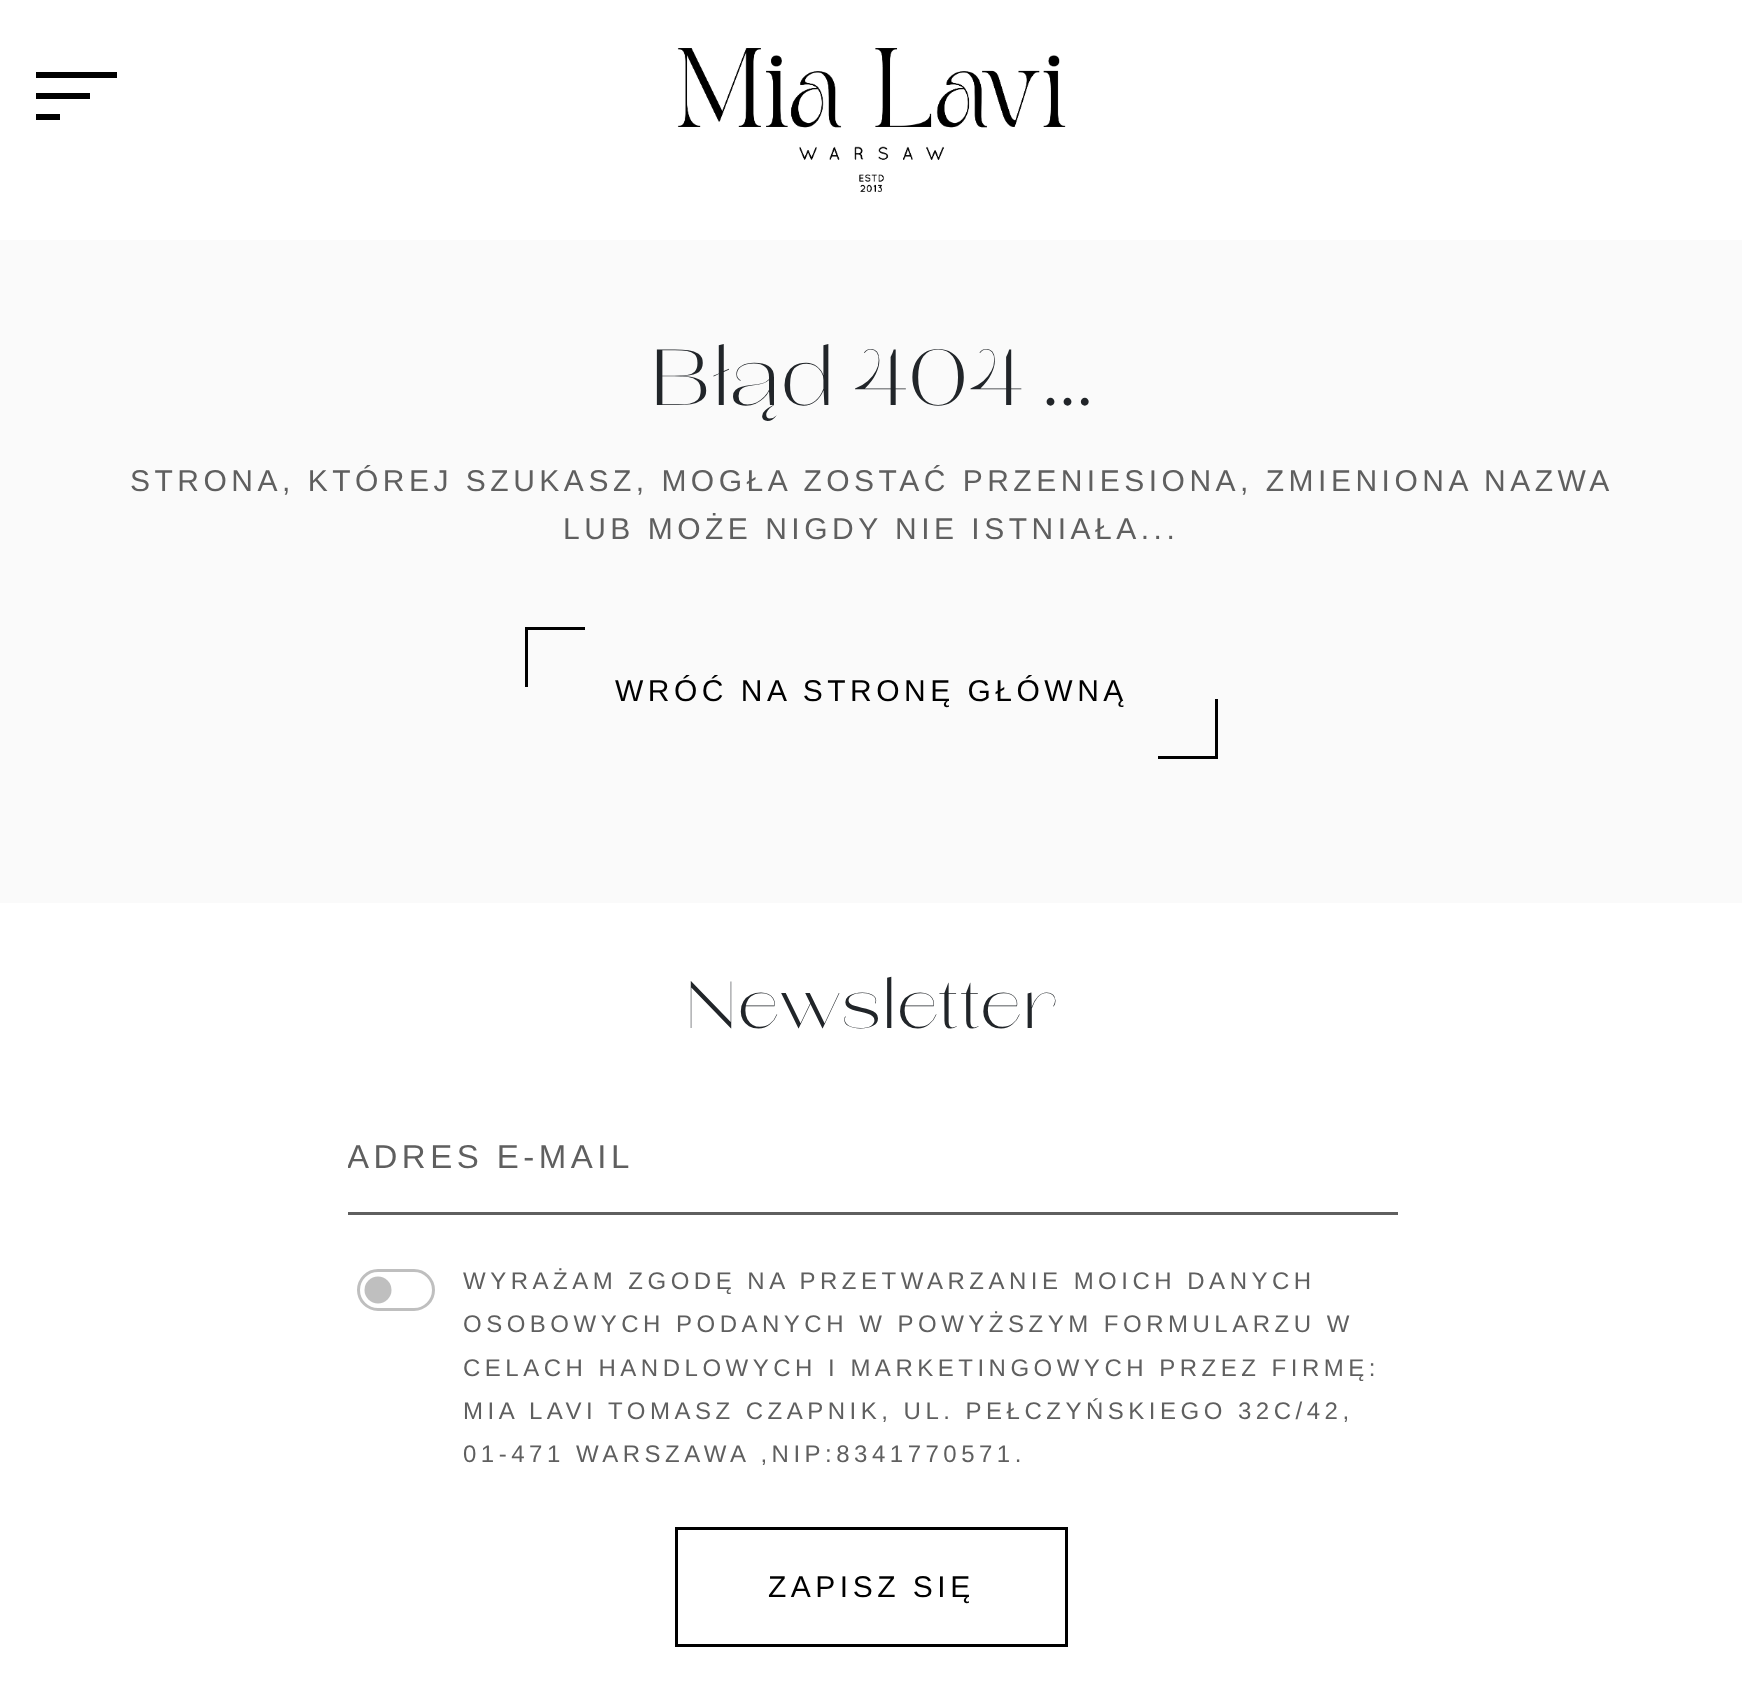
<!DOCTYPE html>
<meta charset="utf-8">
<style>body { margin: 0 } canvas { display: block }</style>
<canvas id="canvas" width="1742" height="1700"></canvas>
<img id="img1" src="img_01.png" hidden>
<script>
window.onload = function () {
	const canvas = document.getElementById("canvas");
	const ctx = canvas.getContext("2d");
	ctx.miterLimit = 4;
	ctx.fontKerning = "normal";
	function txt(s, x, y) {
		ctx.fillText(s, x, y);
	}
	function fill(x, y, w, h) {
		ctx.fillRect(x, y, w, h);
	}
	function img(id, x, y, w, h) {
		ctx.drawImage(document.getElementById(id), x, y, w, h);
	}

	ctx.fillStyle = "#FAFAFA";
	fill(0, 0, 1742, 1700);
	ctx.fillStyle = "#FFFFFF";
	fill(0, 0, 1742, 240);
	ctx.fillStyle = "#000000";
	fill(36, 72, 81, 6);
	fill(36, 93, 54, 6);
	fill(36, 114, 24, 6);
	img("img1", 677, 48, 389, 144);
	fill(525, 627, 60, 3);
	fill(525, 627, 3, 60);
	fill(1215, 699, 3, 60);
	fill(1158, 756, 60, 3);
	ctx.fillStyle = "#FFFFFF";
	fill(0, 903, 1742, 797);
	ctx.fillStyle = "#5F5F5F";
	fill(348, 1212, 1050, 3);
	ctx.fillStyle = "#BFBFBF";
	ctx.beginPath();
	ctx.arc(378, 1290, 13.5, 0, Math.PI * 2);
	ctx.fill();
	ctx.beginPath();
	ctx.roundRect(358.5, 1270.5, 75, 39, 19.5);
	ctx.strokeStyle = "#BFBFBF";
	ctx.lineWidth = 3;
	ctx.stroke();
	ctx.strokeStyle = "#000000";
	ctx.strokeRect(676.5, 1528.5, 390, 117);
	ctx.font = "300 79.25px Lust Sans";
	ctx.fillStyle = "#212529";
	txt("Błąd 404 ...", 650, 405);
	ctx.letterSpacing = "4.5px";
	ctx.font = "30px Liberation Sans";
	ctx.fillStyle = "#5F5F5F";
	txt("STRONA, KTÓREJ SZUKASZ, MOGŁA ZOSTAĆ PRZENIESIONA, ZMIENIONA NAZWA", 130, 491);
	txt("LUB MOŻE NIGDY NIE ISTNIAŁA...", 563, 539);
	ctx.fillStyle = "#000000";
	txt("WRÓĆ NA STRONĘ GŁÓWNĄ", 615, 701);
	ctx.letterSpacing = "0px";
	ctx.font = "300 66.5px Lust Sans";
	ctx.fillStyle = "#212529";
	txt("Newsletter", 685, 1028);
	ctx.save();
	ctx.beginPath();
	ctx.rect(348, 1137, 1050, 36);
	ctx.clip();
	ctx.letterSpacing = "4.5px";
	ctx.font = "33px Liberation Sans";
	ctx.fillStyle = "#5F5F5F";
	txt("ADRES E-MAIL", 347, 1168);
	ctx.restore();
	ctx.letterSpacing = "4.5px";
	ctx.font = "24px Liberation Sans";
	ctx.fillStyle = "#5F5F5F";
	txt("WYRAŻAM ZGODĘ NA PRZETWARZANIE MOICH DANYCH", 463, 1289);
	txt("OSOBOWYCH PODANYCH W POWYŻSZYM FORMULARZU W", 463, 1332);
	txt("CELACH HANDLOWYCH I MARKETINGOWYCH PRZEZ FIRMĘ:", 463, 1376);
	txt("MIA LAVI TOMASZ CZAPNIK, UL. PEŁCZYŃSKIEGO 32C/42,", 463, 1419);
	txt("01-471 WARSZAWA ,NIP:8341770571.", 463, 1462);
	ctx.font = "30px Liberation Sans";
	ctx.fillStyle = "#000000";
	txt("ZAPISZ SIĘ", 768, 1597);
};
</script>
